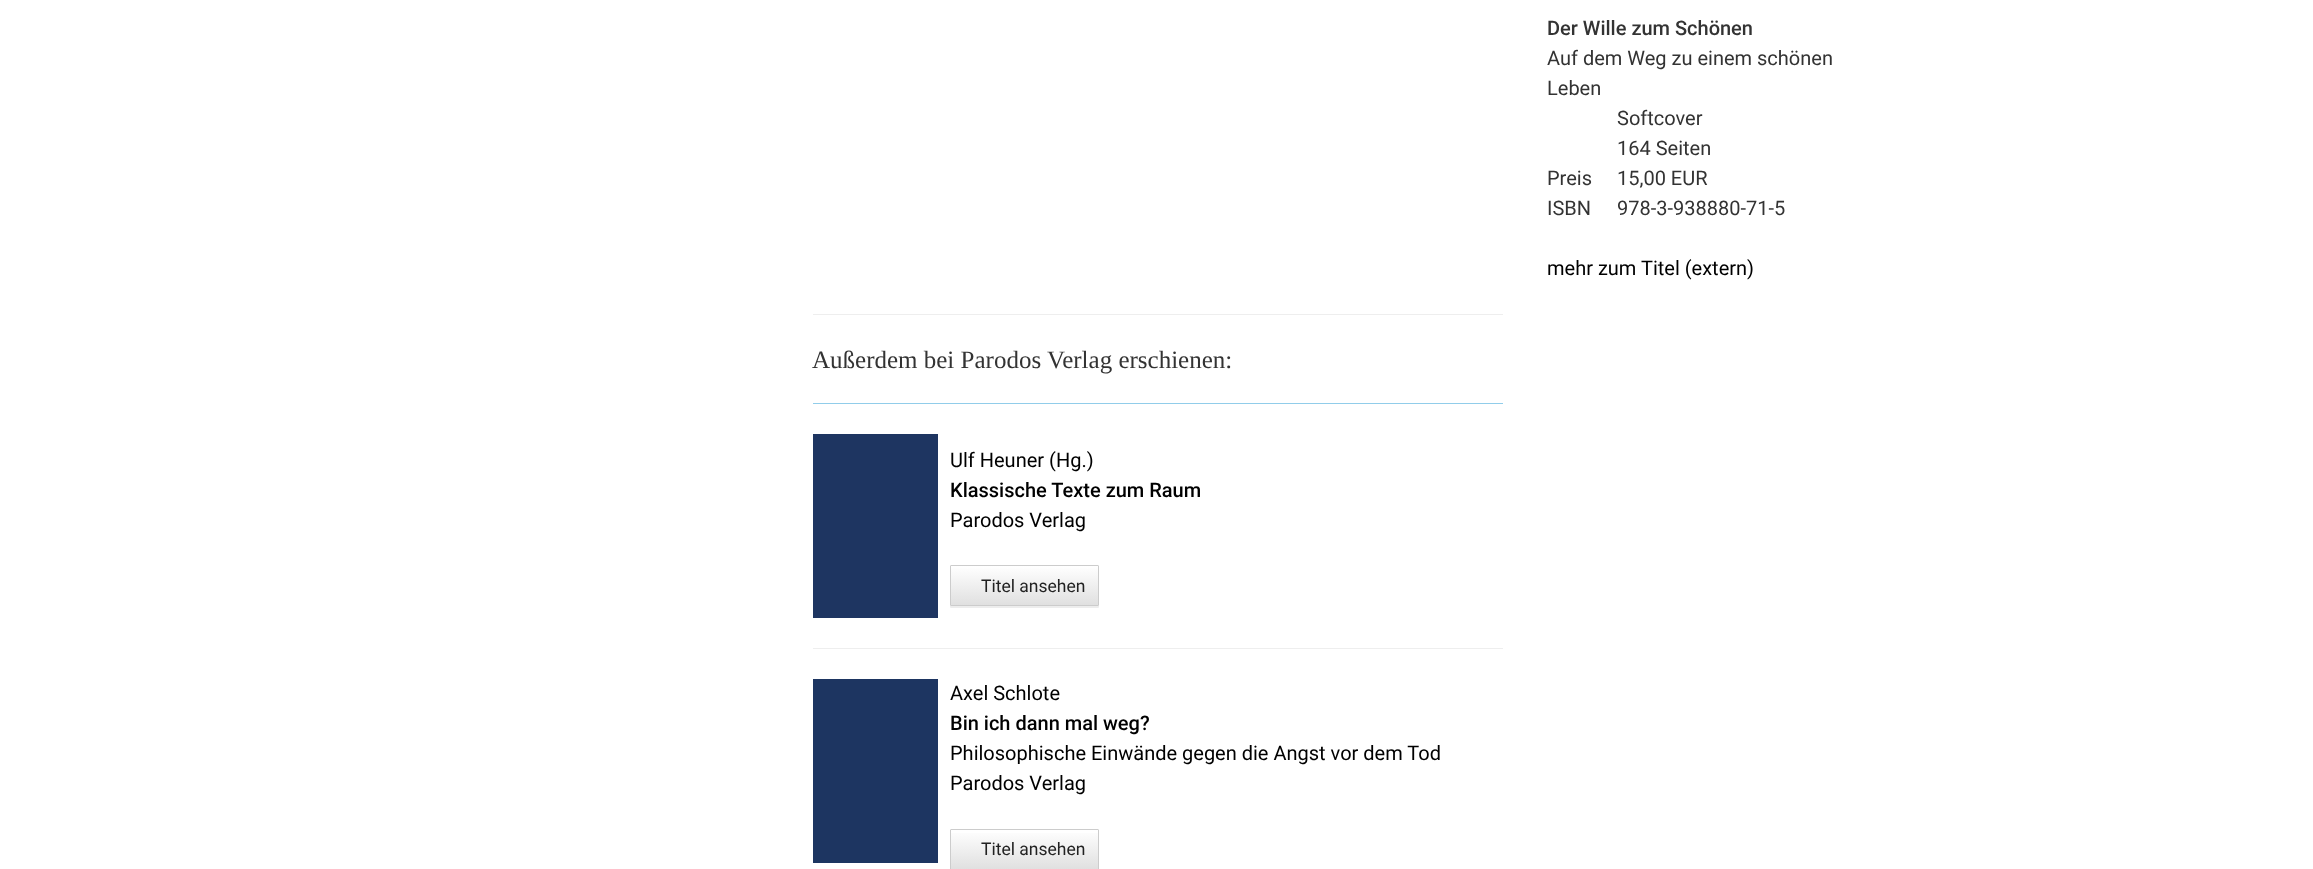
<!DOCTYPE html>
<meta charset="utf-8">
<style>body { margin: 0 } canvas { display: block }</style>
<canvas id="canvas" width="2313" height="869"></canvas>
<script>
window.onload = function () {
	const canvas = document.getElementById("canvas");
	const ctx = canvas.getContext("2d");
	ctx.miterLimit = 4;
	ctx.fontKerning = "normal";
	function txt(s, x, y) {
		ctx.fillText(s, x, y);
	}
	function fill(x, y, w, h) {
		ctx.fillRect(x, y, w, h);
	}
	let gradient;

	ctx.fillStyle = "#FFFFFF";
	fill(0, 0, 2313, 869);
	ctx.fillStyle = "#EEEEEE";
	fill(813, 314, 690, 1);
	ctx.fillStyle = "#91CDEA";
	fill(813, 403, 690, 1);
	ctx.fillStyle = "#1E3561";
	fill(813, 434, 125, 184);
	ctx.fillStyle = "rgba(0, 0, 0, 0.07)";
	ctx.filter = "blur(0.5px)";
	ctx.beginPath();
	ctx.roundRect(950, 566, 149, 42, 1);
	ctx.fill();
	ctx.filter = "none";
	gradient = ctx.createLinearGradient(1024, 566, 1024, 605);
	gradient.addColorStop(0, "#FFFFFF");
	gradient.addColorStop(1, "#E0E0E0");
	ctx.fillStyle = gradient;
	fill(951, 566, 147, 39);
	ctx.beginPath();
	ctx.roundRect(950.5, 565.5, 148, 40, 0.5);
	ctx.strokeStyle = "#CCCCCC";
	ctx.stroke();
	ctx.fillStyle = "#EEEEEE";
	fill(813, 648, 690, 1);
	ctx.fillStyle = "#1D3561";
	fill(813, 679, 125, 184);
	gradient = ctx.createLinearGradient(1024, 830, 1024, 869);
	gradient.addColorStop(0, "#FFFFFF");
	gradient.addColorStop(1, "#E0E0E0");
	ctx.fillStyle = gradient;
	fill(951, 833, 147, 36);
	ctx.beginPath();
	ctx.roundRect(950.5, 829.5, 148, 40, 0.5);
	ctx.stroke();
	ctx.font = "500 20px Roboto";
	ctx.fillStyle = "#333333";
	txt("Der Wille zum Schönen", 1547, 35);
	ctx.font = "20px Roboto";
	txt("Auf dem Weg zu einem schönen", 1547, 65);
	txt("Leben", 1547, 95);
	txt("Softcover", 1617, 125);
	txt("164 Seiten", 1617, 155);
	txt("Preis", 1547, 185);
	txt("15,00 EUR", 1617, 185);
	txt("ISBN", 1547, 215);
	txt("978-3-938880-71-5", 1617, 215);
	ctx.fillStyle = "#000000";
	txt("mehr zum Titel (extern)", 1547, 275);
	ctx.font = "25px Liberation Serif";
	ctx.fillStyle = "#333333";
	txt("Außerdem bei Parodos Verlag erschienen:", 812, 368);
	ctx.font = "20px Roboto";
	ctx.fillStyle = "#000000";
	txt("Ulf Heuner (Hg.)", 950, 467);
	ctx.font = "500 20px Roboto";
	txt("Klassische Texte zum Raum", 950, 497);
	ctx.font = "20px Roboto";
	txt("Parodos Verlag", 950, 527);
	ctx.font = "17.5px Roboto";
	ctx.fillStyle = "#222222";
	txt("Titel ansehen", 981, 592);
	ctx.font = "20px Roboto";
	ctx.fillStyle = "#000000";
	txt("Axel Schlote", 950, 700);
	ctx.font = "500 20px Roboto";
	txt("Bin ich dann mal weg?", 950, 730);
	ctx.font = "20px Roboto";
	txt("Philosophische Einwände gegen die Angst vor dem Tod", 950, 760);
	txt("Parodos Verlag", 950, 790);
	ctx.font = "17.5px Roboto";
	ctx.fillStyle = "#222222";
	txt("Titel ansehen", 981, 855);
};
</script>
